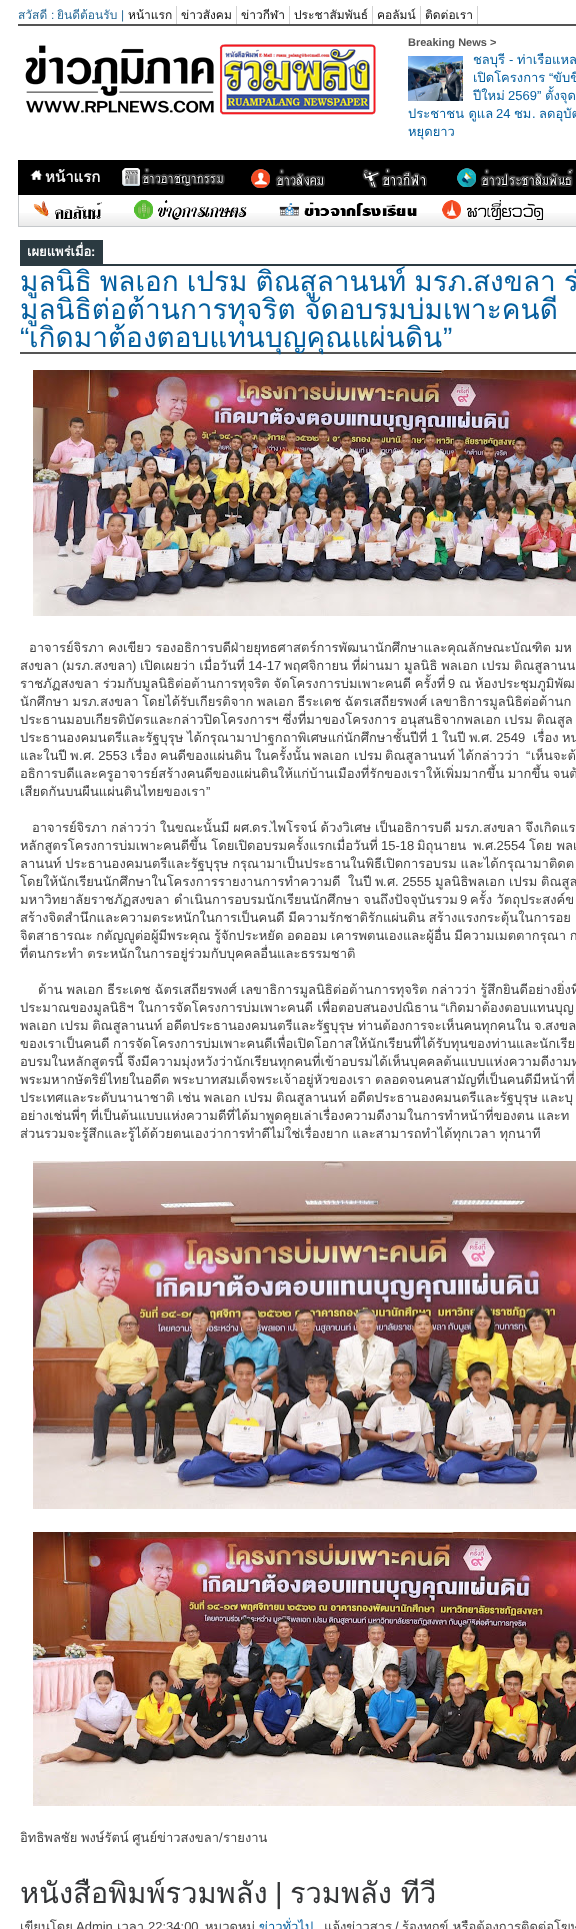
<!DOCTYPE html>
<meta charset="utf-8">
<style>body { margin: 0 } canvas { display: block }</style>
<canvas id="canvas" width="576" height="1929"></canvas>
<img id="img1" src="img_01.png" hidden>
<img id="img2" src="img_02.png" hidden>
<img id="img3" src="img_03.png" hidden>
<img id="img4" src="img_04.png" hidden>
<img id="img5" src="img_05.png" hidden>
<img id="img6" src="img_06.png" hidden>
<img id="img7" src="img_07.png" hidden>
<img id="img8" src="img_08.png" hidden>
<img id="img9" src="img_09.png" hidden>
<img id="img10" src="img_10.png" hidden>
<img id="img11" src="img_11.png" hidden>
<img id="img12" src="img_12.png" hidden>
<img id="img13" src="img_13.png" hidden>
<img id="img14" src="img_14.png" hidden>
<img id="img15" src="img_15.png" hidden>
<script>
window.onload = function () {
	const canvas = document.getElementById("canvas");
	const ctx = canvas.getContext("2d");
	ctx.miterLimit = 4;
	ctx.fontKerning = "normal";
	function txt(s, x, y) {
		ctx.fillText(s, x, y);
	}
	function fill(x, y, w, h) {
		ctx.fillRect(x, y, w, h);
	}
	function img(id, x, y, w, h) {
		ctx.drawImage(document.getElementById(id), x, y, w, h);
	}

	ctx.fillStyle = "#FFFFFF";
	fill(0, 0, 576, 1929);
	ctx.fillStyle = "#545454";
	fill(18, 24, 558, 2);
	ctx.fillStyle = "#D3D3D3";
	fill(176, 6, 1, 18);
	fill(236, 6, 1, 18);
	fill(289, 6, 1, 18);
	fill(372, 6, 1, 18);
	fill(420, 6, 1, 18);
	fill(477, 6, 1, 18);
	img("img1", 25, 44, 351, 71);
	img("img2", 408, 56, 55, 45);
	ctx.fillStyle = "#000000";
	fill(18, 160, 558, 35);
	img("img3", 30, 170, 13, 10);
	img("img4", 122, 168, 103, 18);
	img("img5", 251, 168, 74, 20);
	img("img6", 362, 168, 65, 20);
	img("img7", 457, 168, 117, 19);
	img("img8", 19, 213, 557, 13);
	ctx.fillStyle = "#C5C8CB";
	fill(18, 226, 558, 1);
	fill(18, 195, 1, 32);
	img("img9", 33, 201, 69, 19);
	img("img10", 134, 200, 113, 20);
	img("img11", 279, 202, 138, 15);
	img("img12", 442, 200, 102, 20);
	ctx.fillStyle = "#2B3A41";
	fill(20, 264, 556, 2);
	fill(20, 240, 83, 24);
	ctx.fillStyle = "#555555";
	fill(20, 352, 556, 2);
	img("img13", 33, 370, 543, 246);
	img("img14", 33, 1161, 543, 348);
	img("img15", 33, 1532, 543, 274);
	ctx.font = "12px Loma";
	ctx.fillStyle = "#256896";
	txt("สวัสดี", 18, 19);
	ctx.font = "12px Liberation Sans";
	txt("|", 121, 19);
	txt(":", 51, 19);
	ctx.font = "12px Loma";
	txt("ยินดีต้อนรับ", 57, 19);
	ctx.fillStyle = "#111111";
	txt("หน้าแรก", 128, 19);
	txt("ข่าวสังคม", 181, 19);
	txt("ข่าวกีฬา", 241, 19);
	txt("ประชาสัมพันธ์", 294, 19);
	txt("คอลัมน์", 377, 19);
	txt("ติดต่อเรา", 425, 19);
	ctx.font = "bold 11px Liberation Sans";
	ctx.fillStyle = "#555555";
	txt("Breaking News >", 408, 46);
	ctx.font = "13px Loma";
	ctx.fillStyle = "#045F9F";
	txt("ชลบุรี", 473, 64);
	ctx.font = "13px Liberation Sans";
	txt("-", 509, 64);
	ctx.font = "13px Loma";
	txt("ท่าเรือแหล", 517, 64);
	txt("เปิดโครงการ", 473, 82);
	ctx.font = "13px Liberation Sans";
	txt("“", 549, 82);
	ctx.font = "13px Loma";
	txt("ขับขี่", 553, 82);
	txt("ปีใหม่", 473, 100);
	ctx.font = "13px Liberation Sans";
	txt("2569”", 508, 100);
	ctx.font = "13px Loma";
	txt("ตั้งจุด", 545, 100);
	txt("ประชาชน ดูแล", 408, 118);
	ctx.font = "13px Liberation Sans";
	txt("24", 496, 118);
	ctx.font = "13px Loma";
	txt("ชม", 514, 118);
	ctx.font = "13px Liberation Sans";
	txt(".", 532, 118);
	ctx.font = "13px Loma";
	txt("ลดอุบัต", 539, 118);
	txt("หยุดยาว", 408, 136);
	ctx.font = "bold 15px Loma";
	ctx.fillStyle = "#F1F1F1";
	txt("หน้าแรก", 45, 182);
	ctx.font = "bold 13px Loma";
	ctx.fillStyle = "#FFFFFF";
	txt("เผยแพร่เมื่อ", 27, 256);
	ctx.font = "bold 13px Liberation Sans";
	txt(":", 91, 256);
	ctx.save();
	ctx.beginPath();
	ctx.rect(18, 227, 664, 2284);
	ctx.clip();
	ctx.wordSpacing = "-1.5px";
	ctx.font = "28px Loma";
	ctx.fillStyle = "#045F9F";
	txt("มูลนิธิ พลเอก เปรม ติณสูลานนท์ มรภ", 20, 291);
	ctx.restore();
	ctx.font = "28px Liberation Sans";
	ctx.fillStyle = "#045F9F";
	txt(".", 466, 291);
	ctx.wordSpacing = "-1.5px";
	ctx.font = "28px Loma";
	txt("สงขลา ร่", 473, 291);
	ctx.save();
	ctx.beginPath();
	ctx.rect(18, 227, 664, 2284);
	ctx.clip();
	ctx.wordSpacing = "-1px";
	txt("มูลนิธิต่อต้านการทุจริต จัดอบรมบ่มเพาะคนดี", 20, 319);
	ctx.restore();
	ctx.wordSpacing = "0px";
	ctx.font = "28px Liberation Sans";
	txt("“", 20, 347);
	ctx.font = "28px Loma";
	txt("เกิดมาต้องตอบแทนบุญคุณแผ่นดิน", 29, 347);
	ctx.font = "28px Liberation Sans";
	txt("”", 443, 347);
	ctx.wordSpacing = "-0.5px";
	ctx.font = "13px Loma";
	ctx.fillStyle = "#444444";
	txt("อาจารย์จิรภา คงเขียว รองอธิการบดีฝ่ายยุทธศาสตร์การพัฒนานักศึกษาและคุณลักษณะบัณฑิต มห", 29, 652);
	ctx.wordSpacing = "0px";
	txt("สงขลา", 20, 670);
	ctx.font = "13px Liberation Sans";
	txt("(", 62, 670);
	ctx.font = "13px Loma";
	txt("มรภ", 66, 670);
	ctx.font = "13px Liberation Sans";
	txt(".", 90, 670);
	ctx.font = "13px Loma";
	txt("สงขลา", 94, 670);
	ctx.font = "13px Liberation Sans";
	txt(")", 132, 670);
	ctx.wordSpacing = "-0.5px";
	ctx.font = "13px Loma";
	txt("เปิดเผยว่า เมื่อวันที่", 140, 670);
	ctx.wordSpacing = "0px";
	ctx.font = "13px Liberation Sans";
	txt("14-17", 248, 670);
	ctx.wordSpacing = "-0.5px";
	ctx.font = "13px Loma";
	txt("พฤศจิกายน ที่ผ่านมา มูลนิธิ พลเอก เปรม ติณสูลานน", 284, 670);
	txt("ราชภัฏสงขลา ร่วมกับมูลนิธิต่อต้านการทุจริต จัดโครงการบ่มเพาะคนดี ครั้งที่", 20, 688);
	ctx.wordSpacing = "0px";
	ctx.font = "13px Liberation Sans";
	txt("9", 448, 688);
	ctx.wordSpacing = "-0.5px";
	ctx.font = "13px Loma";
	txt("ณ ห้องประชุมภูมิพัฒ", 459, 688);
	ctx.save();
	ctx.beginPath();
	ctx.rect(18, 227, 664, 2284);
	ctx.clip();
	ctx.wordSpacing = "-0.75px";
	txt("นักศึกษา มรภ", 20, 706);
	ctx.restore();
	ctx.wordSpacing = "0px";
	ctx.font = "13px Liberation Sans";
	txt(".", 96, 706);
	ctx.wordSpacing = "-0.75px";
	ctx.font = "13px Loma";
	txt("สงขลา โดยได้รับเกียรติจาก พลเอก ธีระเดช ฉัตรเสถียรพงศ์ เลขาธิการมูลนิธิต่อต้านก", 100, 706);
	txt("ประธานมอบเกียรติบัตรและกล่าวปิดโครงการฯ ซึ่งที่มาของโครงการ อนุสนธิจากพลเอก เปรม ติณสูล", 20, 724);
	ctx.wordSpacing = "0px";
	txt("ประธานองคมนตรีและรัฐบุรุษ", 20, 742);
	txt("ได้กรุณามาปาฐกถาพิเศษแก่นักศึกษาชั้นปีที่", 187, 742);
	ctx.font = "13px Liberation Sans";
	txt("1", 431, 742);
	ctx.font = "13px Loma";
	txt("ในปี", 442, 742);
	txt("พ", 469, 742);
	ctx.font = "13px Liberation Sans";
	txt(".", 477, 742);
	ctx.font = "13px Loma";
	txt("ศ", 481, 742);
	ctx.font = "13px Liberation Sans";
	txt(". 2549", 489, 742);
	ctx.font = "13px Loma";
	txt("เรื่อง", 533, 742);
	txt("หน", 562, 742);
	txt("และในปี", 20, 760);
	ctx.font = "13px Liberation Sans";
	txt(". 2553", 91, 760);
	ctx.font = "13px Loma";
	txt("เรื่อง", 131, 760);
	txt("คนดีของแผ่นดิน", 160, 760);
	txt("ในครั้งนั้น", 255, 760);
	txt("เปรม", 354, 760);
	txt("ติณสูลานนท์", 385, 760);
	txt("ได้กล่าวว่า", 459, 760);
	txt("พ", 70, 760);
	ctx.font = "13px Liberation Sans";
	txt(".", 79, 760);
	ctx.font = "13px Loma";
	txt("ศ", 83, 760);
	txt("พลเอก", 313, 760);
	ctx.font = "13px Liberation Sans";
	txt("“", 526, 760);
	ctx.font = "13px Loma";
	txt("เห็นจะต้", 531, 760);
	ctx.wordSpacing = "-0.75px";
	txt("อธิการบดีและครูอาจารย์สร้างคนดีของแผ่นดินให้แก่บ้านเมืองที่รักของเราให้เพิ่มมากขึ้น มากขึ้น จนต้", 20, 778);
	ctx.wordSpacing = "0px";
	txt("เสียดกันบนผืนแผ่นดินไทยของเรา", 20, 796);
	ctx.font = "13px Liberation Sans";
	txt("”", 206, 796);
	ctx.wordSpacing = "-0.5px";
	ctx.font = "13px Loma";
	txt("อาจารย์จิรภา กล่าวว่า ในขณะนั้นมี ผศ", 32, 832);
	ctx.wordSpacing = "0px";
	ctx.font = "13px Liberation Sans";
	txt(".", 249, 832);
	ctx.font = "13px Loma";
	txt("ดร", 252, 832);
	ctx.font = "13px Liberation Sans";
	txt(".", 268, 832);
	ctx.wordSpacing = "-0.5px";
	ctx.font = "13px Loma";
	txt("ไพโรจน์ ด้วงวิเศษ เป็นอธิการบดี มรภ", 271, 832);
	ctx.wordSpacing = "0px";
	ctx.font = "13px Liberation Sans";
	txt(".", 479, 832);
	ctx.wordSpacing = "-0.5px";
	ctx.font = "13px Loma";
	txt("สงขลา จึงเกิดแร", 483, 832);
	ctx.wordSpacing = "0px";
	txt("หลักสูตรโครงการบ่มเพาะคนดีขึ้น โดยเปิดอบรมครั้งแรกเมื่อวันที่", 20, 850);
	ctx.font = "13px Liberation Sans";
	txt("15-18", 381, 850);
	ctx.font = "13px Loma";
	txt("มิถุนายน", 417, 850);
	txt("พ", 473, 850);
	ctx.font = "13px Liberation Sans";
	txt(".", 481, 850);
	ctx.font = "13px Loma";
	txt("ศ", 485, 850);
	ctx.font = "13px Liberation Sans";
	txt(".2554", 493, 850);
	ctx.font = "13px Loma";
	txt("โดย พลเ", 529, 850);
	ctx.wordSpacing = "-0.75px";
	txt("ลานนท์ ประธานองคมนตรีและรัฐบุรุษ กรุณามาเป็นประธานในพิธีเปิดการอบรม และได้กรุณามาติดต", 20, 868);
	ctx.wordSpacing = "0px";
	txt("โดยให้นักเรียนนักศึกษาในโครงการรายงานการทำความดี", 20, 886);
	txt("ในปี", 348, 886);
	txt("พ", 375, 886);
	ctx.font = "13px Liberation Sans";
	txt(".", 383, 886);
	ctx.font = "13px Loma";
	txt("ศ", 387, 886);
	ctx.font = "13px Liberation Sans";
	txt(". 2555", 395, 886);
	ctx.font = "13px Loma";
	txt("มูลนิธิพลเอก", 435, 886);
	txt("เปรม", 509, 886);
	txt("ติณสูล", 541, 886);
	txt("มหาวิทยาลัยราชภัฏสงขลา ดำเนินการอบรมนักเรียนนักศึกษา จนถึงปัจจุบันรวม", 20, 904);
	ctx.font = "13px Liberation Sans";
	txt("9", 460, 904);
	ctx.font = "13px Loma";
	txt("ครั้ง วัตถุประสงค์ข", 470, 904);
	ctx.wordSpacing = "-0.75px";
	txt("สร้างจิตสำนึกและความตระหนักในการเป็นคนดี มีความรักชาติรักแผ่นดิน สร้างแรงกระตุ้นในการอย", 20, 922);
	ctx.save();
	ctx.beginPath();
	ctx.rect(18, 227, 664, 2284);
	ctx.clip();
	txt("จิตสาธารณะ กตัญญูต่อผู้มีพระคุณ รู้จักประหยัด อดออม เคารพตนเองและผู้อื่น มีความเมตตากรุณา ก", 20, 940);
	txt("ที่ตนกระทำ ตระหนักในการอยู่ร่วมกับบุคคลอื่นและธรรมชาติ", 20, 958);
	ctx.restore();
	ctx.wordSpacing = "-0.5px";
	txt("ด้าน พลเอก ธีระเดช ฉัตรเสถียรพงศ์ เลขาธิการมูลนิธิต่อต้านการทุจริต กล่าวว่า รู้สึกยินดีอย่างยิ่งที่", 38, 994);
	ctx.wordSpacing = "0px";
	txt("ประมาณของมูลนิธิฯ ในการจัดโครงการบ่มเพาะคนดี เพื่อตอบสนองปณิธาน", 20, 1012);
	ctx.font = "13px Liberation Sans";
	txt("“", 441, 1012);
	ctx.font = "13px Loma";
	txt("เกิดมาต้องตอบแทนบุญ", 445, 1012);
	ctx.wordSpacing = "-0.75px";
	txt("พลเอก เปรม ติณสูลานนท์ อดีตประธานองคมนตรีและรัฐบุรุษ ท่านต้องการจะเห็นคนทุกคนใน จ", 20, 1030);
	ctx.wordSpacing = "0px";
	ctx.font = "13px Liberation Sans";
	txt(".", 542, 1030);
	ctx.wordSpacing = "-0.75px";
	ctx.font = "13px Loma";
	txt("สงขล", 545, 1030);
	txt("ของเราเป็นคนดี การจัดโครงการบ่มเพาะคนดีเพื่อเปิดโอกาสให้นักเรียนที่ได้รับทุนของท่านและนักเรีย", 20, 1048);
	txt("อบรมในหลักสูตรนี้ จึงมีความมุ่งหวังว่านักเรียนทุกคนที่เข้าอบรมได้เห็นบุคคลต้นแบบแห่งความดีงามทุ", 20, 1066);
	txt("พระมหากษัตริย์ไทยในอดีต พระบาทสมเด็จพระเจ้าอยู่หัวของเรา ตลอดจนคนสามัญที่เป็นคนดีมีหน้าที่", 20, 1084);
	txt("ประเทศและระดับนานาชาติ เช่น พลเอก เปรม ติณสูลานนท์ อดีตประธานองคมนตรีและรัฐบุรุษ และบุ", 20, 1102);
	txt("อย่างเช่นพี่ๆ ที่เป็นต้นแบบแห่งความดีที่ได้มาพูดคุยเล่าเรื่องความดีงามในการทำหน้าที่ของตน และท", 20, 1120);
	txt("ส่วนรวมจะรู้สึกและรู้ได้ด้วยตนเองว่าการทำดีไม่ใช่เรื่องยาก และสามารถทำได้ทุกเวลา ทุกนาที", 20, 1138);
	ctx.save();
	ctx.beginPath();
	ctx.rect(18, 227, 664, 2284);
	ctx.clip();
	txt("อิทธิพลชัย พงษ์รัตน์ ศูนย์ข่าวสงขลา", 20, 1842);
	ctx.restore();
	ctx.wordSpacing = "0px";
	ctx.font = "13px Liberation Sans";
	txt("/", 219, 1842);
	ctx.font = "13px Loma";
	txt("รายงาน", 223, 1842);
	ctx.font = "29px Loma";
	ctx.fillStyle = "#343638";
	txt("หนังสือพิมพ์รวมพลัง", 20, 1903);
	ctx.font = "29px Liberation Sans";
	txt("|", 275, 1903);
	ctx.wordSpacing = "-1px";
	ctx.font = "29px Loma";
	txt("รวมพลัง ทีวี", 290, 1903);
	ctx.wordSpacing = "0px";
	ctx.font = "13px Loma";
	ctx.fillStyle = "#444444";
	txt("เขียนโดย", 20, 1931);
	ctx.font = "13px Liberation Sans";
	txt("Admin", 76, 1931);
	txt("22:34:00", 148, 1931);
	ctx.font = "13px Loma";
	txt("หมวดหมู่", 205, 1931);
	ctx.fillStyle = "#045F9F";
	txt("ข่าวทั่วไป", 259, 1931);
	ctx.fillStyle = "#444444";
	txt("แจ้งข่าวสาร", 324, 1931);
	txt("เวลา", 117, 1931);
	ctx.font = "13px Liberation Sans";
	txt("/", 395, 1931);
	ctx.font = "13px Loma";
	txt("ร้องทุกข์ หรือต้องการติดต่อโฆษ", 402, 1931);
};
</script>
